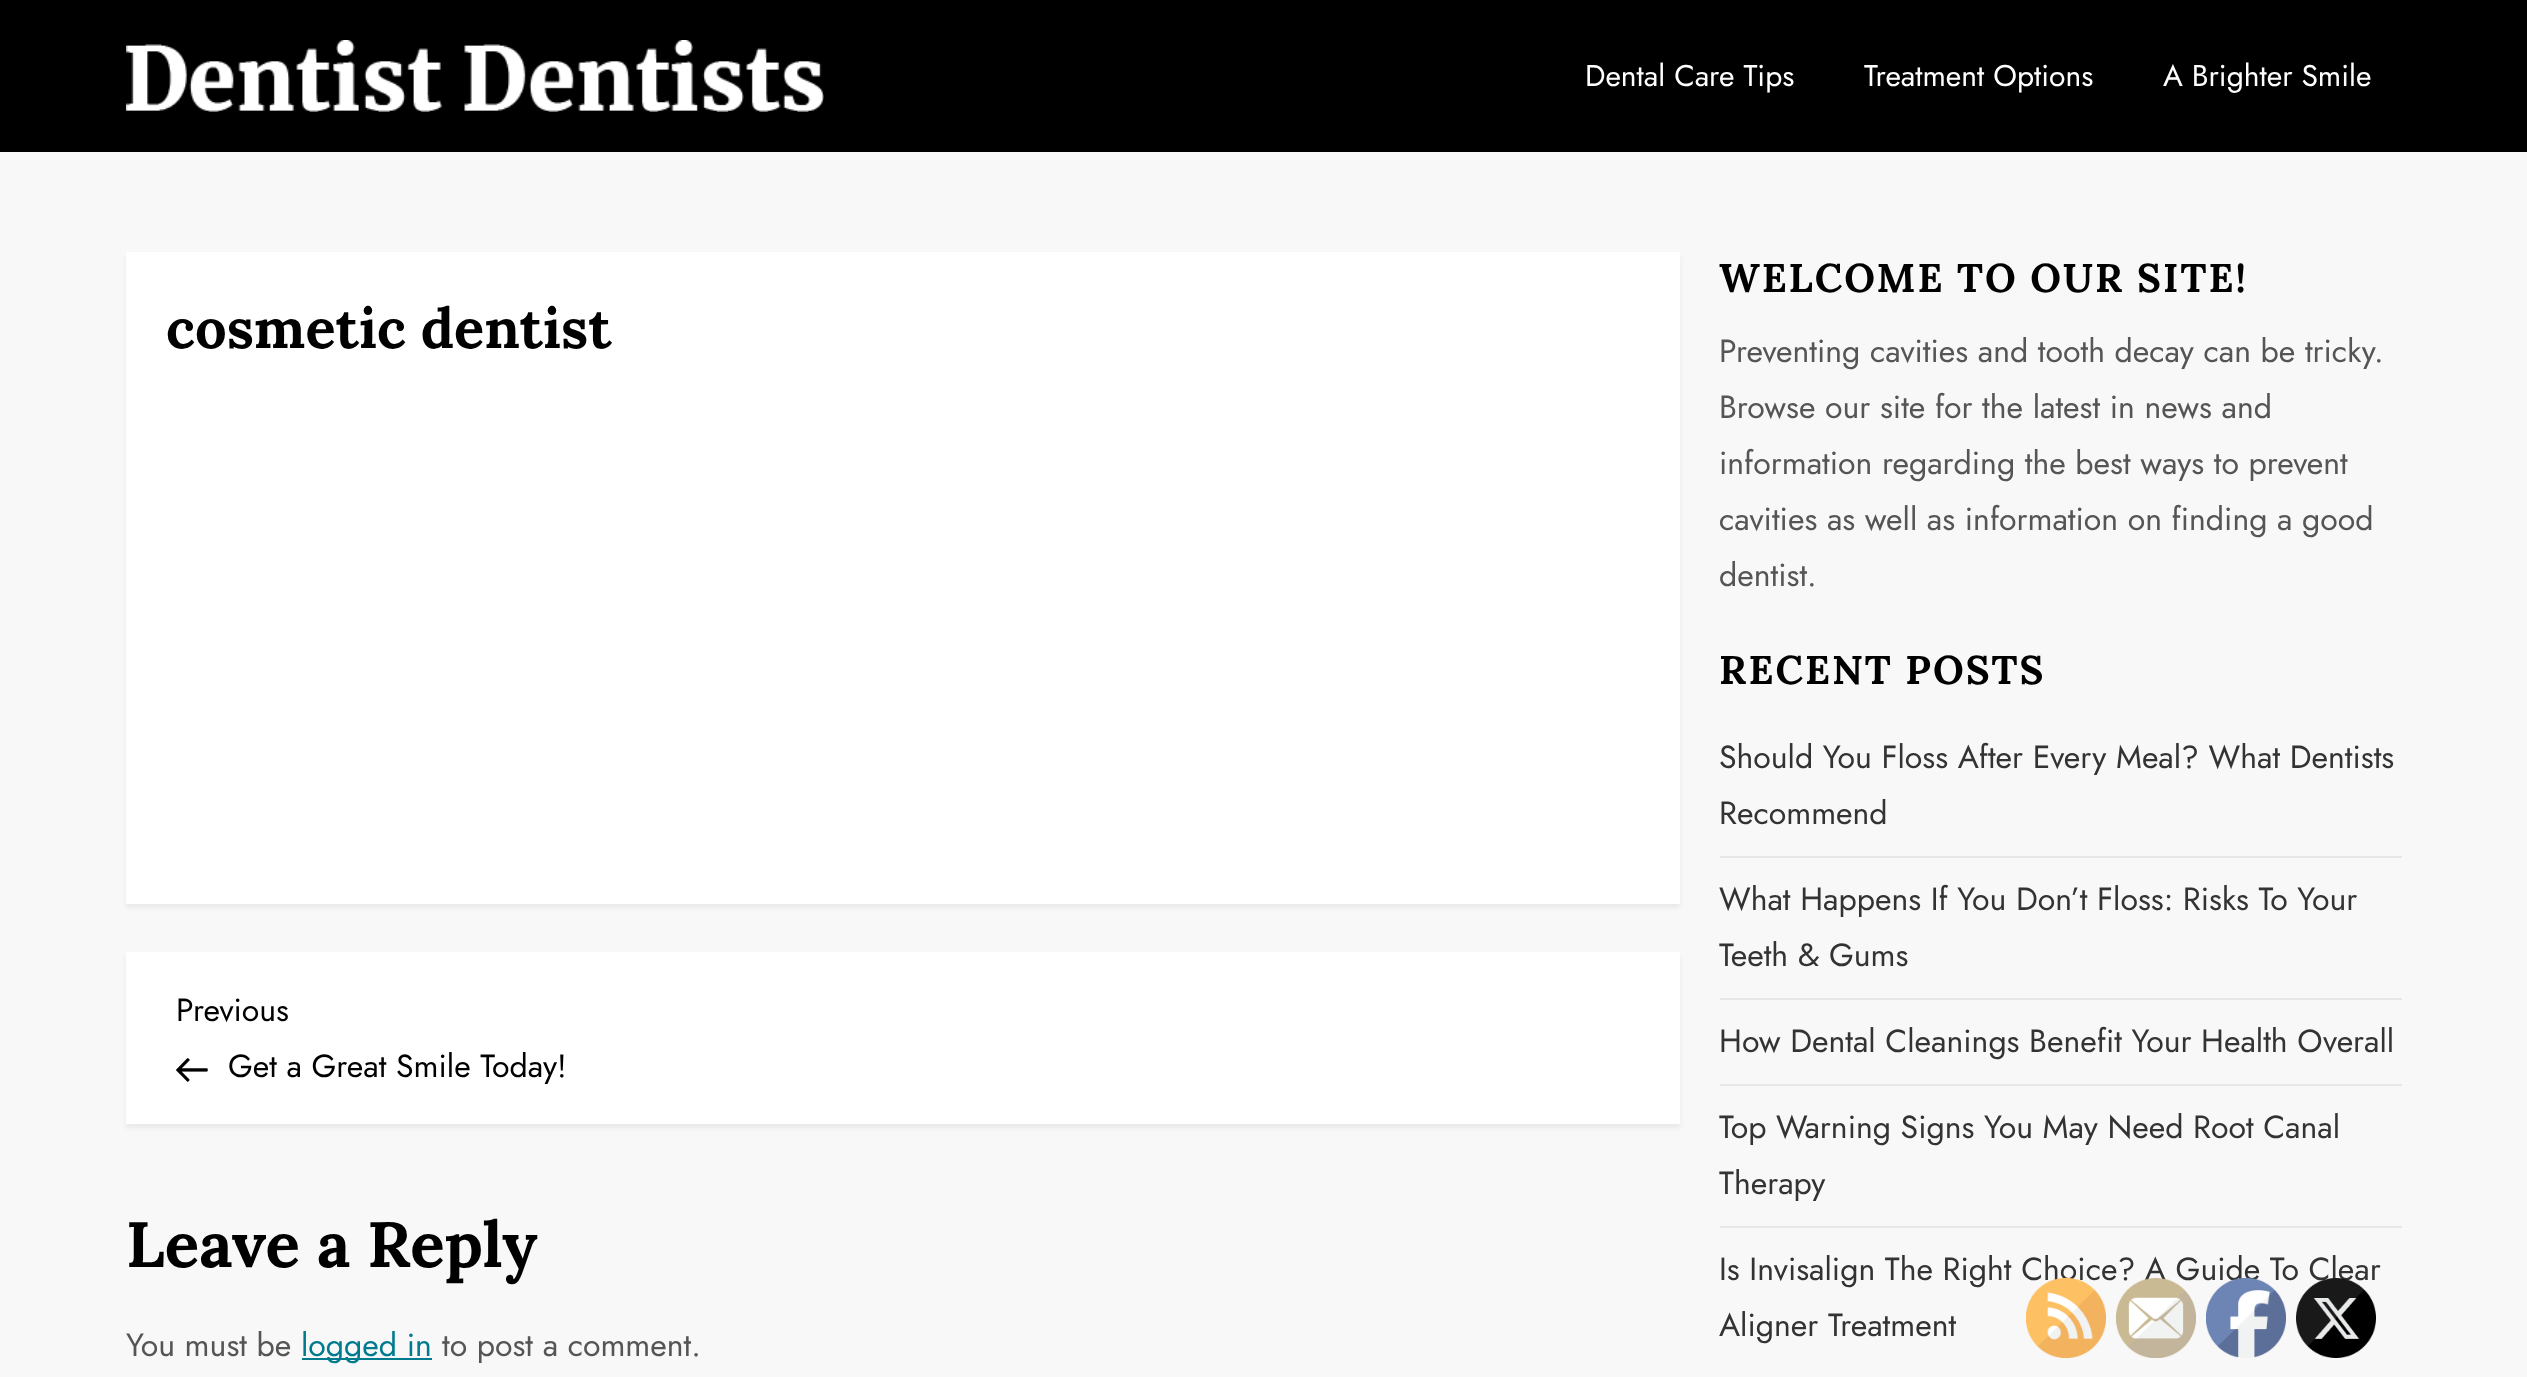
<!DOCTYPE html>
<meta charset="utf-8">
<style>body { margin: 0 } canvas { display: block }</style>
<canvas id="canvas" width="2527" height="1377"></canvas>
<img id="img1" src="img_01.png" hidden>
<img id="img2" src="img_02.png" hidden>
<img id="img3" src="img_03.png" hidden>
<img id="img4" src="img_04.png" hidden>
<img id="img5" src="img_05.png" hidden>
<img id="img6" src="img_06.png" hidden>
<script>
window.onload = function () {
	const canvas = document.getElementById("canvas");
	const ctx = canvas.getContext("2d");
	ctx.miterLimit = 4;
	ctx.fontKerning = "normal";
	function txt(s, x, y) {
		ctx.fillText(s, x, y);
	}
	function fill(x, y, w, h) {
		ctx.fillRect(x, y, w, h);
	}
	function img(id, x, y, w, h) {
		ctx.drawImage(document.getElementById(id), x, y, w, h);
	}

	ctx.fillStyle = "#F8F8F8";
	fill(0, 0, 2527, 1377);
	ctx.fillStyle = "#000000";
	fill(0, 0, 2527, 152);
	img("img1", 126, 40, 698, 72);
	ctx.fillStyle = "rgba(0, 0, 0, 0.06)";
	ctx.filter = "blur(2px)";
	ctx.beginPath();
	ctx.rect(126, 256, 1554, 652);
	ctx.fill();
	ctx.filter = "none";
	ctx.fillStyle = "#FFFFFF";
	fill(126, 252, 1554, 652);
	ctx.fillStyle = "rgba(0, 0, 0, 0.06)";
	ctx.filter = "blur(2px)";
	ctx.beginPath();
	ctx.rect(126, 956, 1554, 172);
	ctx.fill();
	ctx.filter = "none";
	ctx.fillStyle = "#FFFFFF";
	fill(126, 952, 1554, 172);
	img("img2", 176, 1058, 32, 24);
	ctx.fillStyle = "#007B8E";
	fill(302, 1358, 130, 2);
	ctx.fillStyle = "#E7E7E7";
	fill(1720, 856, 682, 2);
	fill(1720, 998, 682, 2);
	fill(1720, 1084, 682, 2);
	fill(1720, 1226, 682, 2);
	ctx.font = "30px Jost";
	ctx.fillStyle = "#FFFFFF";
	txt("Dental Care Tips", 1585, 86);
	txt("Treatment Options", 1864, 86);
	txt("A Brighter Smile", 2163, 86);
	ctx.font = "bold 56px Lora";
	ctx.fillStyle = "#000000";
	txt("cosmetic dentist", 166, 348);
	ctx.font = "32px Jost";
	txt("Previous", 176, 1021);
	txt("Get a Great Smile Today!", 228, 1077);
	ctx.font = "bold 64px Lora";
	txt("Leave a Reply", 126, 1267);
	ctx.font = "32px Jost";
	ctx.fillStyle = "#555555";
	txt("You must be", 126, 1356);
	ctx.fillStyle = "#007B8E";
	txt("logged in", 301, 1356);
	ctx.fillStyle = "#555555";
	txt("to post a comment.", 442, 1356);
	ctx.letterSpacing = "2px";
	ctx.font = "bold 40px Lora";
	ctx.fillStyle = "#000000";
	txt("WELCOME TO OUR SITE!", 1719, 292);
	ctx.letterSpacing = "0px";
	ctx.font = "32px Jost";
	ctx.fillStyle = "#555555";
	txt("Preventing cavities and tooth decay can be tricky.", 1719, 362);
	txt("Browse our site for the latest in news and", 1719, 418);
	txt("information regarding the best ways to prevent", 1719, 474);
	txt("cavities as well as information on finding a good", 1719, 530);
	txt("dentist.", 1719, 586);
	ctx.letterSpacing = "2px";
	ctx.font = "bold 40px Lora";
	ctx.fillStyle = "#000000";
	txt("RECENT POSTS", 1719, 684);
	ctx.letterSpacing = "0px";
	ctx.font = "32px Jost";
	ctx.fillStyle = "#333333";
	txt("Should You Floss After Every Meal? What Dentists", 1719, 768);
	txt("Recommend", 1719, 824);
	txt("What Happens If You Don’t Floss: Risks To Your", 1719, 910);
	txt("Teeth & Gums", 1719, 966);
	txt("How Dental Cleanings Benefit Your Health Overall", 1719, 1052);
	txt("Top Warning Signs You May Need Root Canal", 1719, 1138);
	txt("Therapy", 1719, 1194);
	txt("Is Invisalign The Right Choice? A Guide To Clear", 1719, 1280);
	txt("Aligner Treatment", 1719, 1336);
	img("img3", 2026, 1278, 80, 80);
	img("img4", 2116, 1278, 80, 80);
	img("img5", 2206, 1278, 80, 80);
	img("img6", 2296, 1278, 80, 80);
};
</script>
